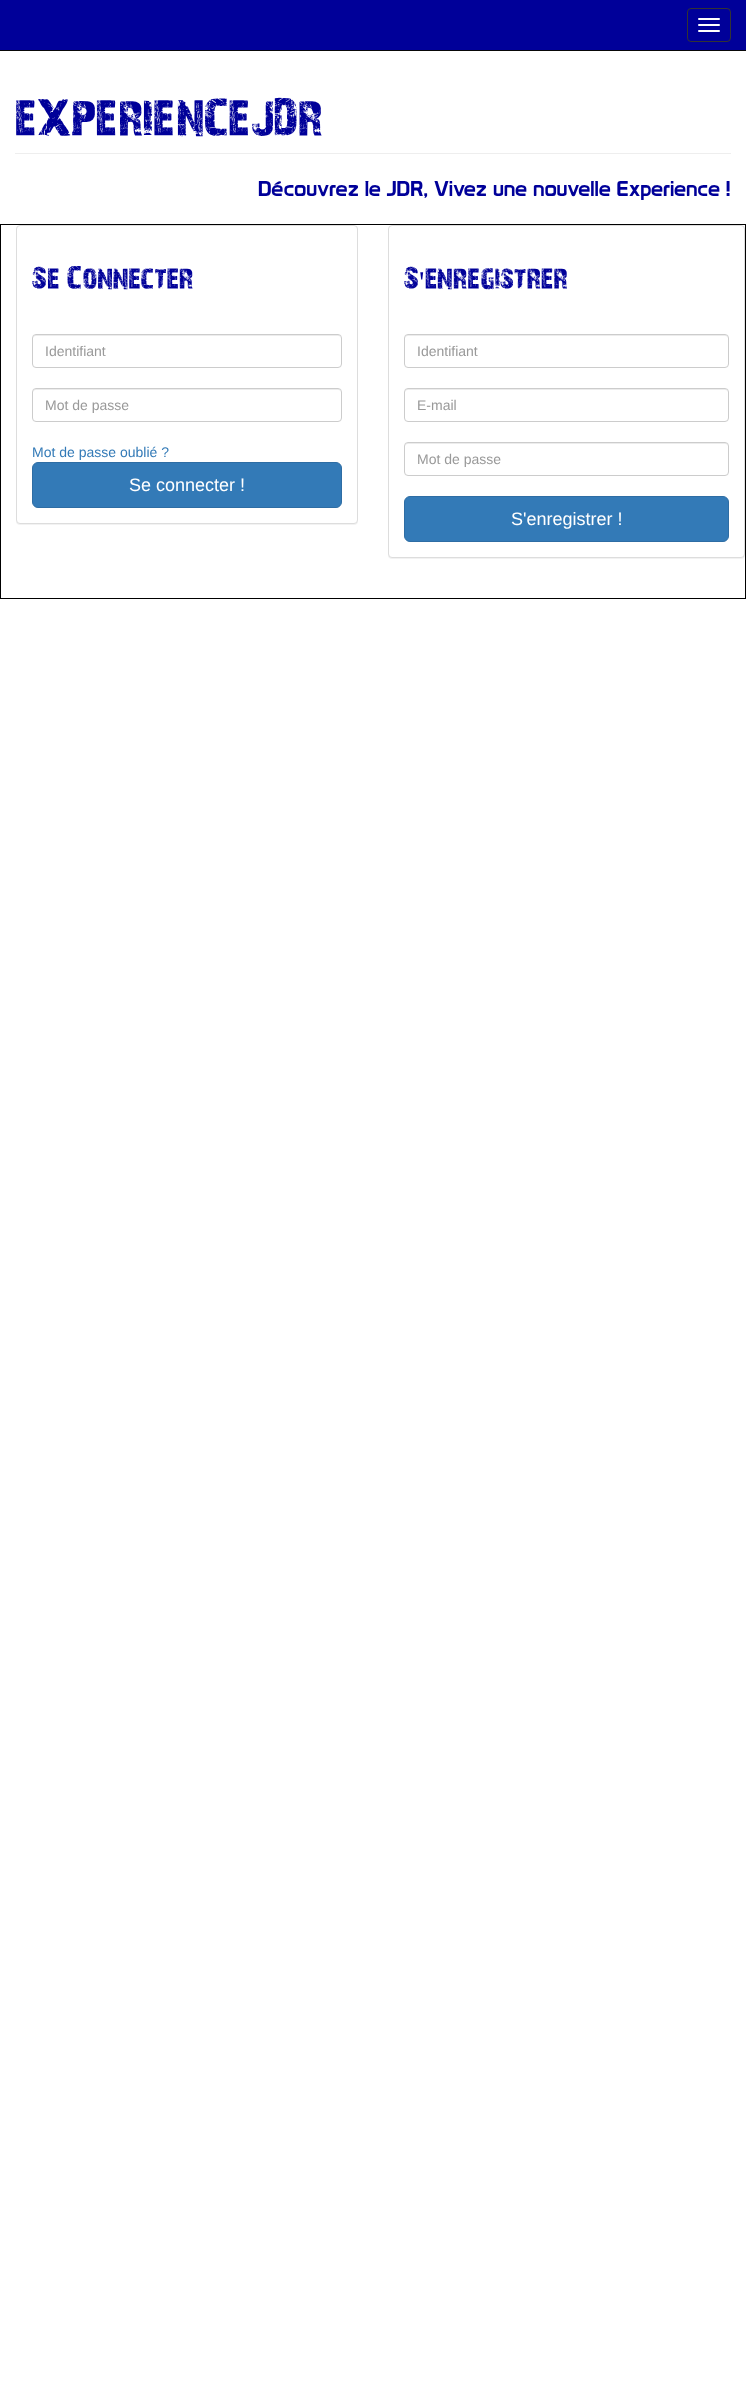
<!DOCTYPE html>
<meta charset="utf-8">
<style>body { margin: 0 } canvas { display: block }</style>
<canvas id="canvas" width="746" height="2386"></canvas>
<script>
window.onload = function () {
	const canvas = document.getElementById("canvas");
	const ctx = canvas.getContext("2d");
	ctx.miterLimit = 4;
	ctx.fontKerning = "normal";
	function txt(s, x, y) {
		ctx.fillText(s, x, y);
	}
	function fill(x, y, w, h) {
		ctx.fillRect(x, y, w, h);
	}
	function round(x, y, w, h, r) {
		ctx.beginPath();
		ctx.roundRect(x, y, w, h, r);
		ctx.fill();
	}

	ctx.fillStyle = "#FFFFFF";
	fill(0, 0, 746, 2386);
	ctx.fillStyle = "#000099";
	fill(0, 0, 746, 50);
	ctx.fillStyle = "#080808";
	fill(0, 50, 746, 1);
	ctx.beginPath();
	ctx.roundRect(687.5, 8.5, 43, 33, 3.5);
	ctx.strokeStyle = "#333333";
	ctx.stroke();
	ctx.fillStyle = "#FFFFFF";
	round(698, 18, 22, 2, 1);
	round(698, 24, 22, 2, 1);
	round(698, 30, 22, 2, 1);
	ctx.fillStyle = "#EEEEEE";
	fill(15, 153, 716, 1);
	ctx.strokeStyle = "#000000";
	ctx.strokeRect(0.5, 224.5, 745, 374);
	ctx.fillStyle = "rgba(0, 0, 0, 0.05)";
	ctx.filter = "blur(0.5px)";
	ctx.beginPath();
	ctx.roundRect(16, 226, 342, 299, 4);
	ctx.fill();
	ctx.filter = "none";
	ctx.fillStyle = "#FFFFFF";
	ctx.beginPath();
	ctx.roundRect(16.5, 225.5, 341, 298, 3.5);
	ctx.fill();
	ctx.strokeStyle = "#DDDDDD";
	ctx.stroke();
	ctx.fillStyle = "#ECECEC";
	ctx.beginPath();
	ctx.moveTo(36, 336);
	ctx.lineTo(338, 336);
	ctx.bezierCurveTo(340, 336, 341, 337, 341, 339);
	ctx.lineTo(340, 336);
	ctx.lineTo(339, 335);
	ctx.lineTo(36, 335);
	ctx.bezierCurveTo(34, 335, 33, 337, 33, 339);
	ctx.bezierCurveTo(33, 337, 34, 336, 36, 336);
	ctx.closePath();
	ctx.fill();
	ctx.beginPath();
	ctx.roundRect(32.5, 334.5, 309, 33, 3.5);
	ctx.strokeStyle = "#CCCCCC";
	ctx.stroke();
	ctx.beginPath();
	ctx.moveTo(36, 390);
	ctx.lineTo(338, 390);
	ctx.bezierCurveTo(340, 390, 341, 391, 341, 393);
	ctx.lineTo(340, 390);
	ctx.lineTo(339, 389);
	ctx.lineTo(36, 389);
	ctx.bezierCurveTo(34, 389, 33, 391, 33, 393);
	ctx.bezierCurveTo(33, 391, 34, 390, 36, 390);
	ctx.closePath();
	ctx.fill();
	ctx.beginPath();
	ctx.roundRect(32.5, 388.5, 309, 33, 3.5);
	ctx.stroke();
	ctx.fillStyle = "#337AB7";
	ctx.beginPath();
	ctx.roundRect(32.5, 462.5, 309, 45, 5.5);
	ctx.fill();
	ctx.strokeStyle = "#2E6DA4";
	ctx.stroke();
	ctx.fillStyle = "rgba(0, 0, 0, 0.05)";
	ctx.filter = "blur(0.5px)";
	ctx.beginPath();
	ctx.roundRect(388, 226, 357, 333, 4);
	ctx.fill();
	ctx.filter = "none";
	ctx.fillStyle = "#FFFFFF";
	ctx.beginPath();
	ctx.roundRect(388.5, 225.5, 356, 332, 3.5);
	ctx.fill();
	ctx.strokeStyle = "#DDDDDD";
	ctx.stroke();
	ctx.fillStyle = "#ECECEC";
	ctx.beginPath();
	ctx.moveTo(408, 336);
	ctx.lineTo(725, 336);
	ctx.bezierCurveTo(727, 336, 728, 337, 728, 339);
	ctx.bezierCurveTo(728, 337, 727, 335, 725, 335);
	ctx.lineTo(408, 335);
	ctx.bezierCurveTo(406, 335, 405, 337, 405, 339);
	ctx.bezierCurveTo(405, 337, 406, 336, 408, 336);
	ctx.closePath();
	ctx.fill();
	ctx.beginPath();
	ctx.roundRect(404.5, 334.5, 324, 33, 3.5);
	ctx.strokeStyle = "#CCCCCC";
	ctx.stroke();
	ctx.beginPath();
	ctx.moveTo(408, 390);
	ctx.lineTo(725, 390);
	ctx.bezierCurveTo(727, 390, 728, 391, 728, 393);
	ctx.bezierCurveTo(728, 391, 727, 389, 725, 389);
	ctx.lineTo(408, 389);
	ctx.bezierCurveTo(406, 389, 405, 391, 405, 393);
	ctx.bezierCurveTo(405, 391, 406, 390, 408, 390);
	ctx.closePath();
	ctx.fill();
	ctx.beginPath();
	ctx.roundRect(404.5, 388.5, 324, 33, 3.5);
	ctx.stroke();
	ctx.beginPath();
	ctx.moveTo(408, 444);
	ctx.lineTo(725, 444);
	ctx.bezierCurveTo(727, 444, 728, 445, 728, 447);
	ctx.bezierCurveTo(728, 445, 727, 443, 725, 443);
	ctx.lineTo(408, 443);
	ctx.bezierCurveTo(406, 443, 405, 445, 405, 447);
	ctx.bezierCurveTo(405, 445, 406, 444, 408, 444);
	ctx.closePath();
	ctx.fill();
	ctx.beginPath();
	ctx.roundRect(404.5, 442.5, 324, 33, 3.5);
	ctx.stroke();
	ctx.fillStyle = "#337AB7";
	ctx.beginPath();
	ctx.roundRect(404.5, 496.5, 324, 45, 5.5);
	ctx.fill();
	ctx.strokeStyle = "#2E6DA4";
	ctx.stroke();
	ctx.font = "49px '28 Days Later'";
	ctx.fillStyle = "#000099";
	txt("EXPERIENCEJDR", 15, 141);
	ctx.font = "21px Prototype";
	txt("Découvrez le JDR, Vivez une nouvelle Experience !", 258, 196);
	ctx.font = "30px '28 Days Later'";
	txt("Se Connecter", 32, 292);
	ctx.font = "14px Liberation Sans";
	ctx.fillStyle = "#999999";
	txt("Identifiant", 45, 356);
	txt("Mot de passe", 45, 410);
	ctx.fillStyle = "#337AB7";
	txt("Mot de passe oublié ?", 32, 457);
	ctx.font = "18px Liberation Sans";
	ctx.fillStyle = "#FFFFFF";
	txt("Se connecter !", 129, 491);
	ctx.font = "30px '28 Days Later'";
	ctx.fillStyle = "#000099";
	txt("S", 404, 292);
	ctx.font = "30px Liberation Serif";
	txt("'", 419, 292);
	ctx.font = "30px '28 Days Later'";
	txt("enregistrer", 425, 292);
	ctx.font = "14px Liberation Sans";
	ctx.fillStyle = "#999999";
	txt("Identifiant", 417, 356);
	txt("E-mail", 417, 410);
	txt("Mot de passe", 417, 464);
	ctx.font = "18px Liberation Sans";
	ctx.fillStyle = "#FFFFFF";
	txt("S'enregistrer !", 511, 525);
};
</script>
